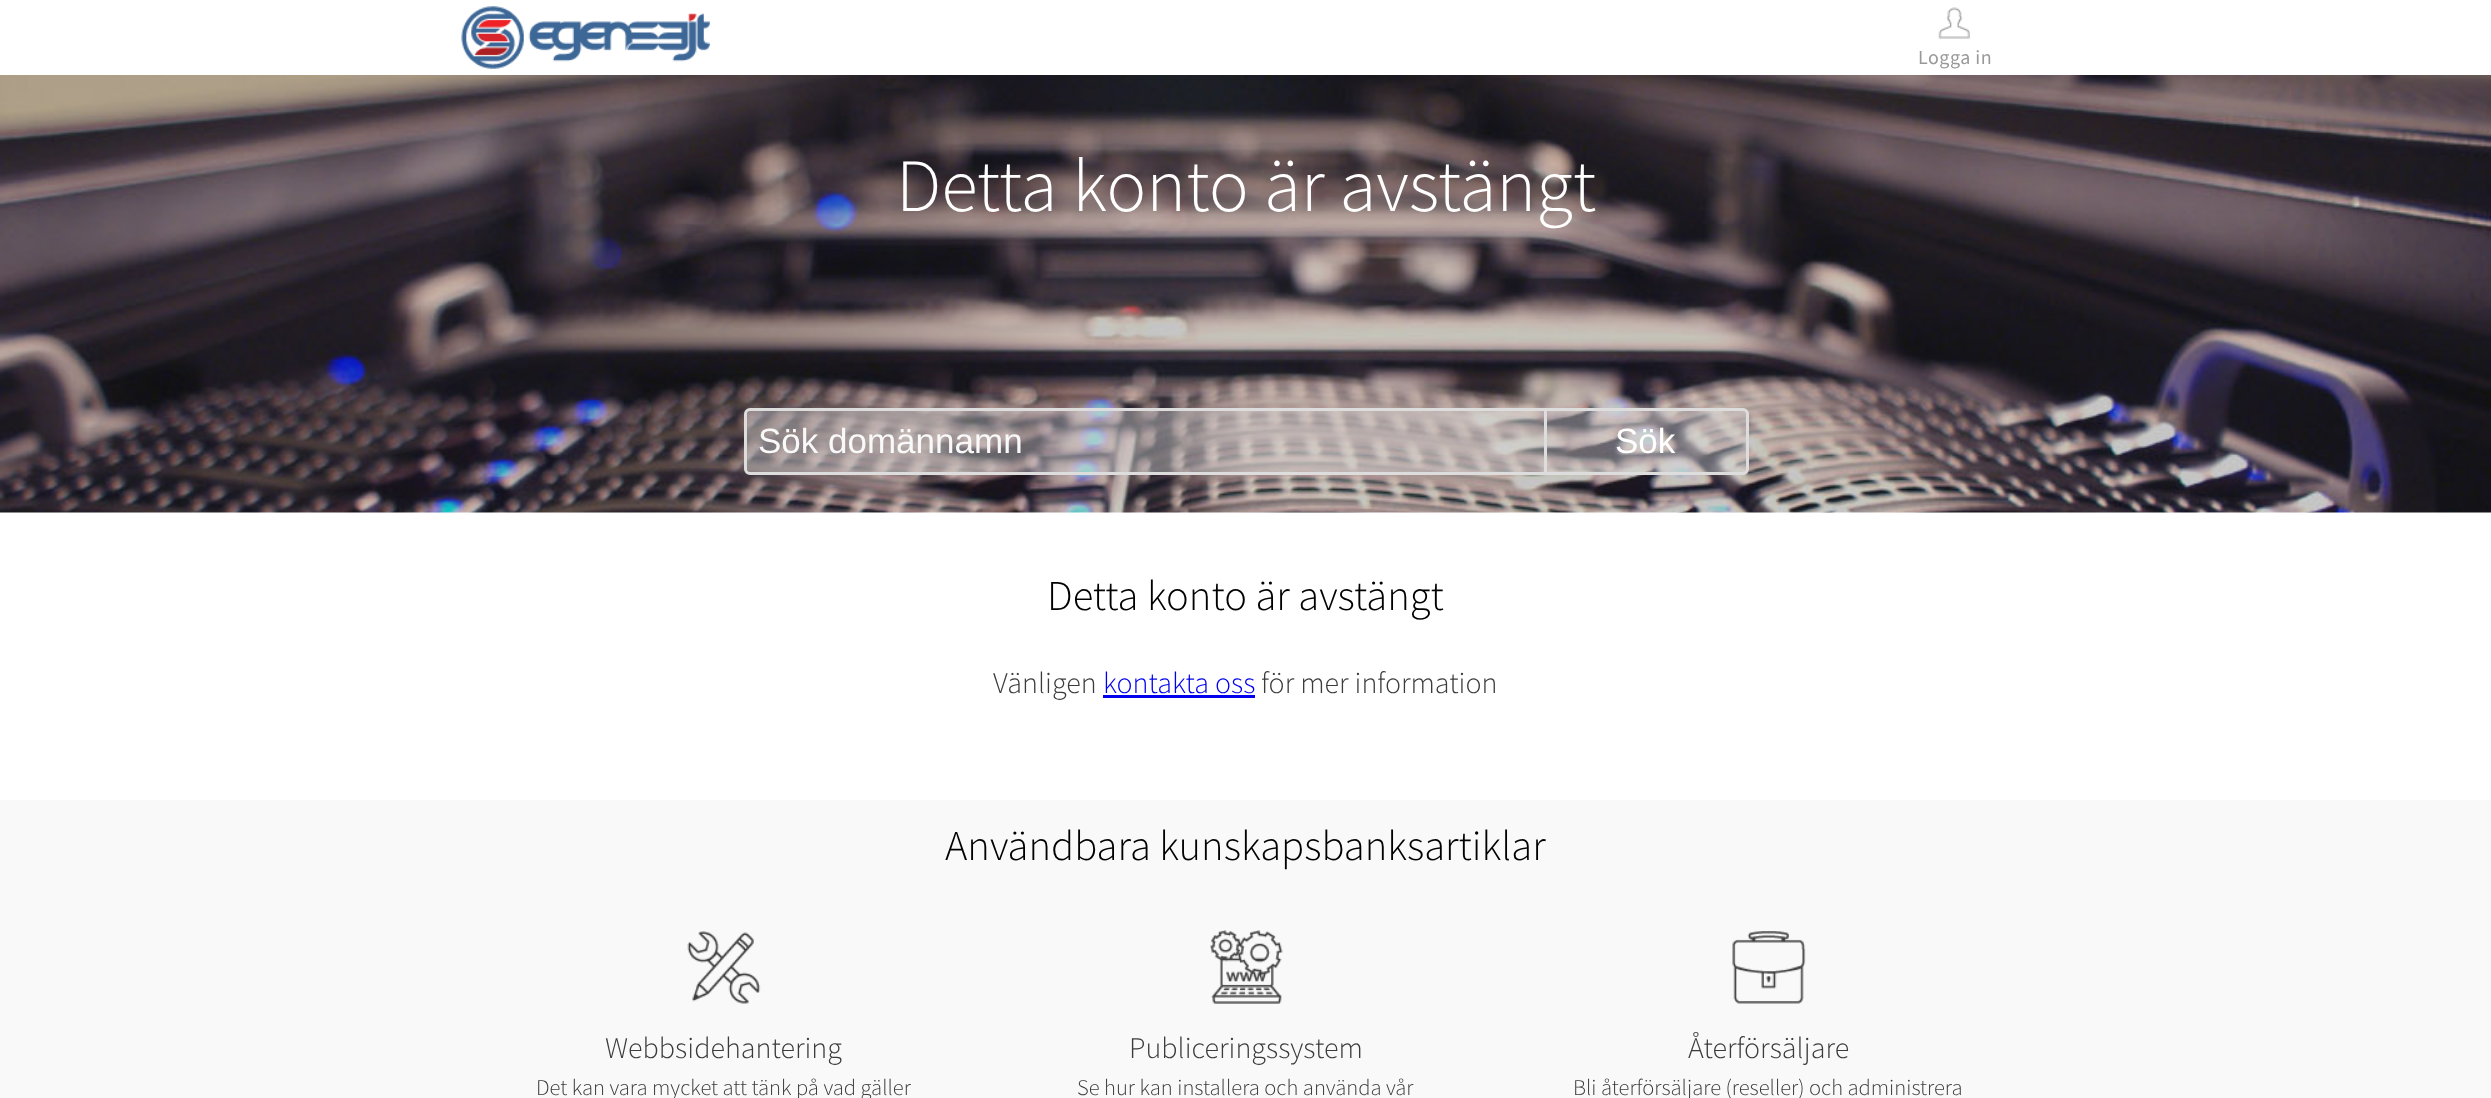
<!DOCTYPE html>
<meta charset="utf-8">
<style>body { margin: 0 } canvas { display: block }</style>
<canvas id="canvas" width="2491" height="1098"></canvas>
<img id="img1" src="img_01.png" hidden>
<img id="img2" src="img_02.png" hidden>
<img id="img3" src="img_03.png" hidden>
<img id="img4" src="img_04.png" hidden>
<img id="img5" src="img_05.png" hidden>
<img id="img6" src="img_06.png" hidden>
<script>
window.onload = function () {
	const canvas = document.getElementById("canvas");
	const ctx = canvas.getContext("2d");
	ctx.miterLimit = 4;
	ctx.fontKerning = "normal";
	function txt(s, x, y) {
		ctx.fillText(s, x, y);
	}
	function fill(x, y, w, h) {
		ctx.fillRect(x, y, w, h);
	}
	function img(id, x, y, w, h) {
		ctx.drawImage(document.getElementById(id), x, y, w, h);
	}

	ctx.fillStyle = "#FFFFFF";
	fill(0, 0, 2491, 1098);
	img("img1", 461, 6, 249, 63);
	img("img2", 1938, 7, 32, 32);
	img("img3", 0, 75, 2491, 438);
	ctx.fillStyle = "rgba(221, 221, 221, 0.4)";
	ctx.beginPath();
	ctx.roundRect(745.5, 409.5, 1002, 64, 4.5);
	ctx.fill();
	ctx.strokeStyle = "#DDDDDD";
	ctx.lineWidth = 3;
	ctx.stroke();
	ctx.fillStyle = "#DDDDDD";
	fill(1544, 410, 3, 63);
	ctx.fillStyle = "#0000EE";
	fill(1103, 695, 152, 3);
	ctx.fillStyle = "#F9F9F9";
	fill(0, 800, 2491, 298);
	img("img4", 687, 931, 74, 73);
	img("img5", 1210, 930, 73, 74);
	img("img6", 1732, 931, 74, 73);
	ctx.letterSpacing = "0.5px";
	ctx.font = "20px Source Sans Pro";
	ctx.fillStyle = "#999999";
	txt("Logga in", 1918, 64);
	ctx.letterSpacing = "0px";
	ctx.font = "300 75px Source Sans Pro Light";
	ctx.fillStyle = "#FFFFFF";
	txt("Detta konto är avstängt", 896, 211);
	ctx.font = "35px Liberation Sans";
	ctx.fillStyle = "#F9F9F9";
	txt("Sök domännamn", 758, 453);
	ctx.fillStyle = "#FFFFFF";
	txt("Sök", 1615, 453);
	ctx.font = "300 42.5px Source Sans Pro Light";
	ctx.fillStyle = "#000000";
	txt("Detta konto är avstängt", 1047, 610);
	ctx.font = "300 30px Source Sans Pro Light";
	ctx.fillStyle = "#3B3B3B";
	txt("Vänligen", 993, 693);
	ctx.fillStyle = "#0000EE";
	txt("kontakta oss", 1103, 693);
	ctx.fillStyle = "#3B3B3B";
	txt("för mer information", 1261, 693);
	ctx.font = "300 42.5px Source Sans Pro Light";
	ctx.fillStyle = "#000000";
	txt("Användbara kunskapsbanksartiklar", 945, 860);
	ctx.font = "300 30px Source Sans Pro Light";
	ctx.fillStyle = "#3B3B3B";
	txt("Webbsidehantering", 605, 1058);
	ctx.font = "300 22.5px Source Sans Pro Light";
	txt("Det kan vara mycket att tänk på vad gäller", 536, 1095);
	ctx.font = "300 30px Source Sans Pro Light";
	txt("Publiceringssystem", 1129, 1058);
	ctx.font = "300 22.5px Source Sans Pro Light";
	txt("Se hur kan installera och använda vår", 1077, 1095);
	ctx.font = "300 30px Source Sans Pro Light";
	txt("Återförsäljare", 1688, 1058);
	ctx.font = "300 22.5px Source Sans Pro Light";
	txt("Bli återförsäljare (reseller) och administrera", 1573, 1095);
};
</script>
